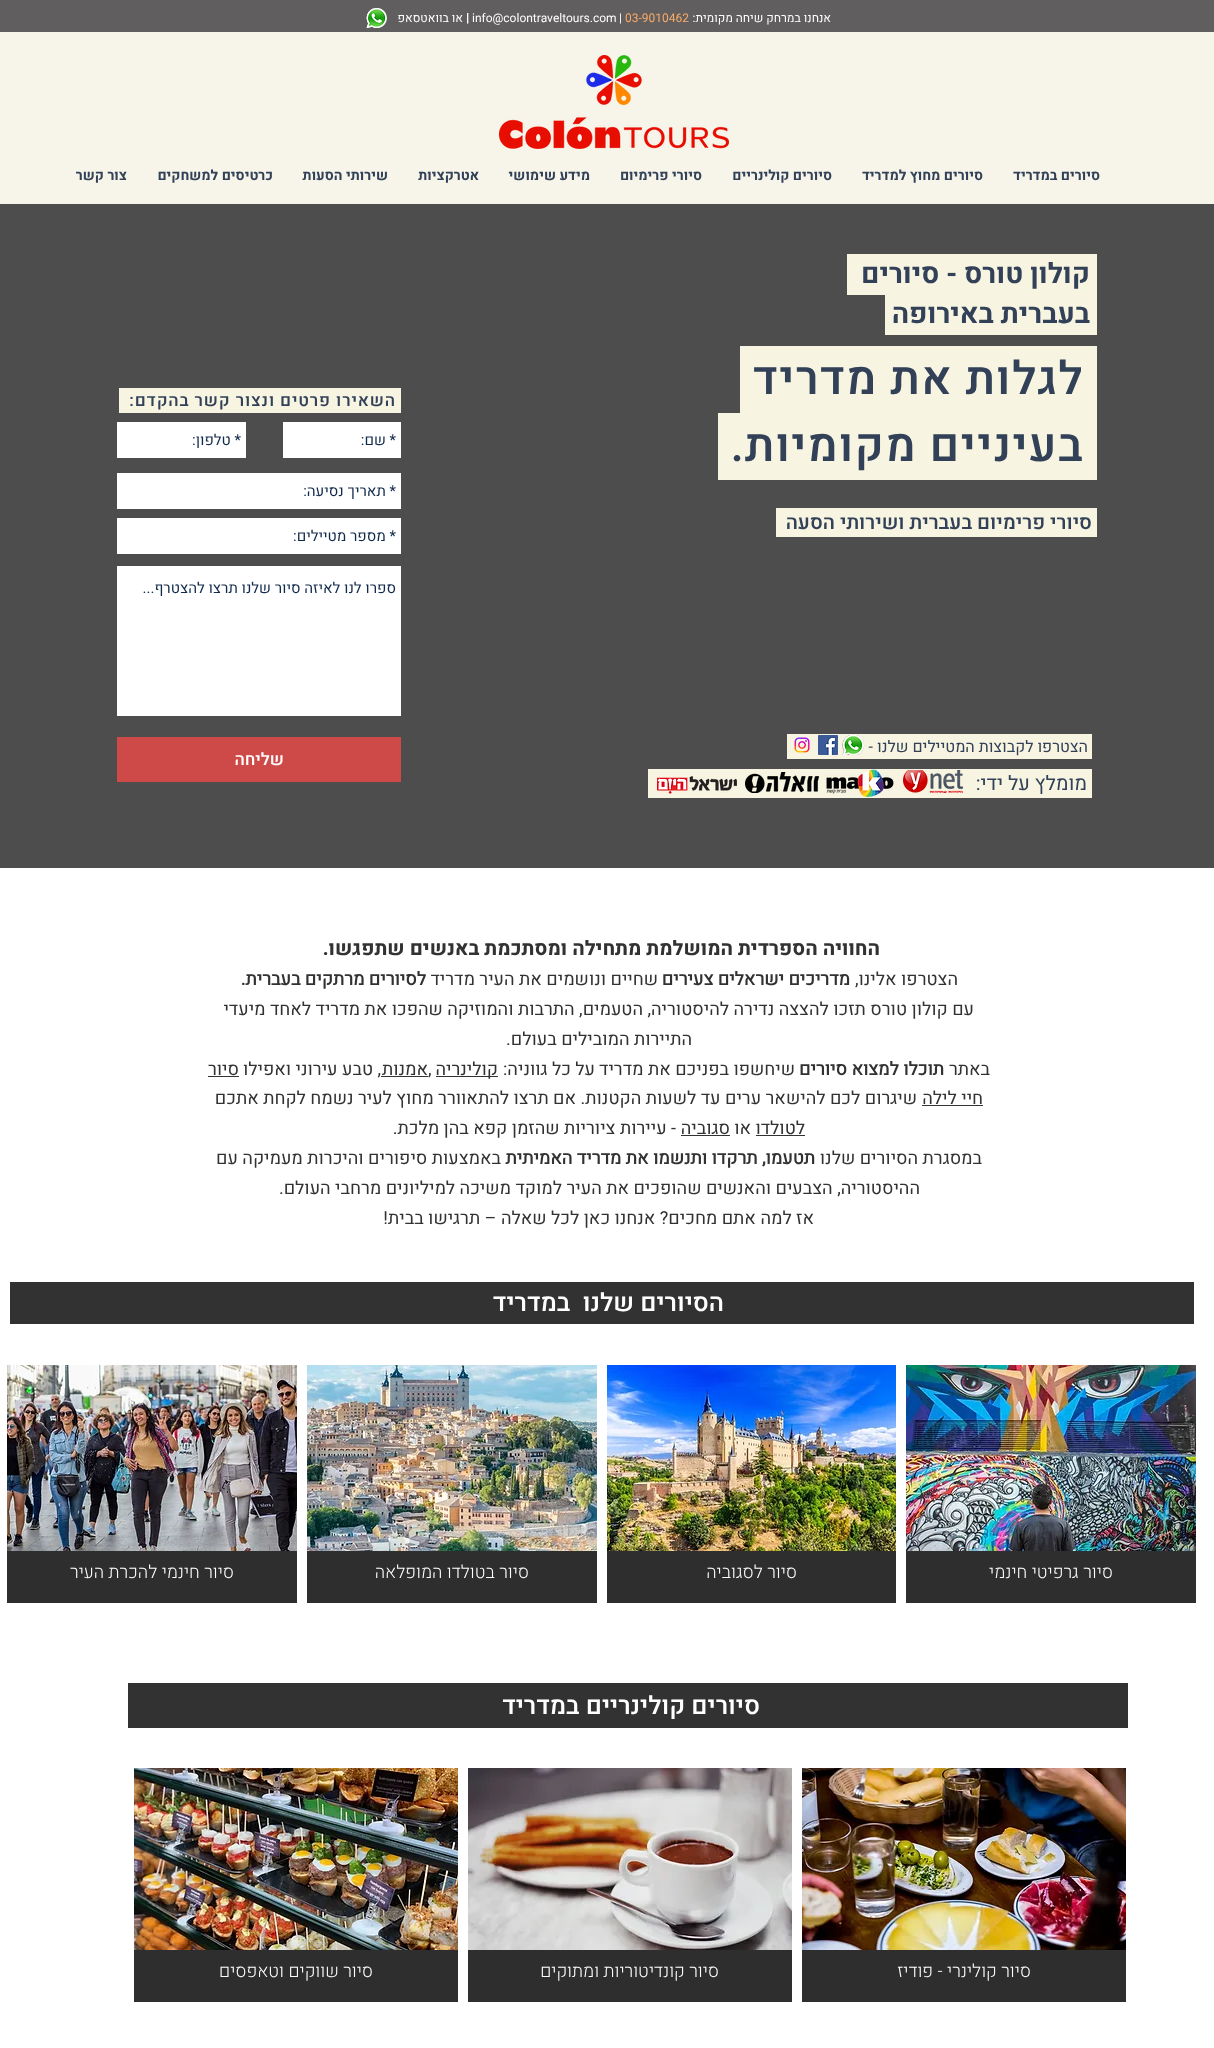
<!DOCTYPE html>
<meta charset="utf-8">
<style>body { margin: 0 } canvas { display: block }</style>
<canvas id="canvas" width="1214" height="2048"></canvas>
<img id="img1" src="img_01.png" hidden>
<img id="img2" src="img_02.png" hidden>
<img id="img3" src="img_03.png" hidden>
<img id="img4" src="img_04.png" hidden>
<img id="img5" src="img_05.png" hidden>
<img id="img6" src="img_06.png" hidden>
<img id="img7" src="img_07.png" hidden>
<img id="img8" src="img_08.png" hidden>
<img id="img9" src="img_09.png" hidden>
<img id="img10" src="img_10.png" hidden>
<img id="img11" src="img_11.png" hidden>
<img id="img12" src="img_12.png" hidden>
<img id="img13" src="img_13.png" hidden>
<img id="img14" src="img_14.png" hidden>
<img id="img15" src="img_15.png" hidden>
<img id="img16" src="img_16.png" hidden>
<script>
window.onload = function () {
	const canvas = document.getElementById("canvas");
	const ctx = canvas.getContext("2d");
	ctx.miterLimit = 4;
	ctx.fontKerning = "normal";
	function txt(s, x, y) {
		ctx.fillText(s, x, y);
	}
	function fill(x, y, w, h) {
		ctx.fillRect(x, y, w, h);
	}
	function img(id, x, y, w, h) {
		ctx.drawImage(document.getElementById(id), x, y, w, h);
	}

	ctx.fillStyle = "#FFFFFF";
	fill(0, 0, 1214, 2048);
	ctx.fillStyle = "#605E5E";
	fill(0, 0, 1214, 32);
	img("img1", 366, 8, 21, 20);
	ctx.fillStyle = "#F7F5E9";
	fill(0, 32, 1214, 172);
	img("img2", 499, 55, 230, 94);
	ctx.fillStyle = "#4D4D4D";
	fill(0, 204, 1214, 664);
	ctx.fillStyle = "#F7F5E1";
	fill(847, 254, 250, 41);
	fill(885, 295, 212, 40);
	fill(740, 346, 357, 67);
	fill(718, 413, 379, 67);
	fill(119, 388, 282, 25);
	fill(776, 508, 321, 29);
	ctx.fillStyle = "#FFFFFF";
	fill(283, 422, 118, 36);
	fill(117, 422, 129, 36);
	fill(117, 473, 284, 36);
	fill(117, 518, 284, 36);
	fill(117, 566, 284, 150);
	ctx.fillStyle = "#CE4A48";
	fill(117, 737, 284, 45);
	ctx.fillStyle = "#F7F5E1";
	fill(787, 734, 305, 25);
	img("img3", 842, 735, 23, 20);
	img("img4", 818, 735, 20, 20);
	img("img5", 794, 737, 16, 16);
	fill(648, 769, 444, 29);
	img("img6", 903, 770, 60, 23);
	img("img7", 826, 769, 68, 28);
	img("img8", 745, 772, 74, 21);
	img("img9", 657, 776, 80, 18);
	ctx.fillStyle = "#323232";
	fill(436, 1076, 62, 1);
	fill(381, 1076, 47, 1);
	fill(208, 1076, 31, 1);
	fill(922, 1105, 61, 1);
	fill(756, 1135, 49, 1);
	fill(681, 1135, 49, 1);
	fill(10, 1282, 1184, 42);
	img("img10", 906, 1365, 290, 186);
	ctx.fillStyle = "#2F2E2E";
	fill(906, 1551, 290, 52);
	img("img11", 607, 1365, 289, 186);
	fill(607, 1551, 289, 52);
	img("img12", 307, 1365, 290, 186);
	fill(307, 1551, 290, 52);
	img("img13", 7, 1365, 290, 186);
	fill(7, 1551, 290, 52);
	ctx.fillStyle = "#323232";
	fill(128, 1683, 1000, 45);
	img("img14", 802, 1768, 324, 182);
	ctx.fillStyle = "#2F2E2E";
	fill(802, 1950, 324, 52);
	img("img15", 468, 1768, 324, 182);
	fill(468, 1950, 324, 52);
	img("img16", 134, 1768, 324, 182);
	fill(134, 1950, 324, 52);
	ctx.direction = "rtl";
	ctx.font = "12px Heebo";
	ctx.fillStyle = "#FFFFFF";
	txt("אנחנו במרחק שיחה מקומית:", 831, 22);
	ctx.direction = "ltr";
	ctx.fillStyle = "#FAAA69";
	txt("03-9010462", 625, 22);
	ctx.fillStyle = "#FFFFFF";
	txt("|", 619, 22);
	txt("info@colontraveltours.com", 472, 22);
	ctx.font = "bold 12px 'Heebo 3'";
	txt("|", 466, 22);
	ctx.direction = "rtl";
	ctx.font = "12px Heebo";
	txt("או בוואטסאפ", 463, 22);
	ctx.font = "bold 14px 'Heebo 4'";
	ctx.fillStyle = "#324158";
	txt("סיורים במדריד", 1100, 180);
	txt("סיורים מחוץ למדריד", 983, 180);
	txt("סיורים קולינריים", 832, 180);
	txt("סיורי פרימיום", 702, 180);
	txt("מידע שימושי", 590, 180);
	txt("אטרקציות", 479, 180);
	txt("שירותי הסעות", 388, 180);
	txt("כרטיסים למשחקים", 273, 180);
	txt("צור קשר", 127, 180);
	ctx.font = "bold 28px Heebo";
	txt("קולון טורס - סיורים", 1090, 283);
	txt("בעברית באירופה", 1090, 323);
	ctx.letterSpacing = "1.4px";
	ctx.font = "500 46px Heebo";
	txt("לגלות את מדריד", 1084, 394);
	txt("בעיניים מקומיות.", 1084, 461);
	ctx.letterSpacing = "0.85px";
	ctx.font = "500 17px Heebo";
	txt("השאירו פרטים ונצור קשר בהקדם:", 396, 406);
	ctx.letterSpacing = "0px";
	ctx.font = "500 20px Heebo";
	txt("סיורי פרימיום בעברית ושירותי הסעה", 1092, 529);
	ctx.font = "15px Heebo";
	ctx.fillStyle = "#112A4B";
	txt("* שם:", 396, 445);
	txt("* טלפון:", 241, 445);
	txt("* תאריך נסיעה:", 396, 496);
	txt("* מספר מטיילים:", 396, 541);
	txt("ספרו לנו לאיזה סיור שלנו תרצו להצטרף...", 396, 593);
	ctx.font = "500 17px Heebo";
	ctx.fillStyle = "#FFFFFF";
	txt("שליחה", 284, 765);
	ctx.font = "16px Heebo";
	ctx.fillStyle = "#324158";
	txt("הצטרפו לקבוצות המטיילים שלנו -", 1088, 752);
	ctx.font = "20px Heebo";
	txt("מומלץ על ידי:", 1087, 790);
	ctx.font = "bold 20px 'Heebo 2'";
	ctx.fillStyle = "#323232";
	txt("החוויה הספרדית המושלמת מתחילה ומסתכמת באנשים שתפגשו.", 880, 955);
	ctx.font = "18px Heebo";
	txt("הצטרפו אלינו,", 958, 985);
	ctx.font = "bold 18px 'Heebo 3'";
	txt("מדריכים ישראלים צעירים", 850, 985);
	ctx.font = "18px Heebo";
	txt("שחיים ונושמים את העיר מדריד", 658, 985);
	ctx.font = "bold 18px 'Heebo 3'";
	txt("לסיורים מרתקים בעברית.", 426, 985);
	ctx.font = "18px Heebo";
	txt("עם קולון טורס תזכו להצצה נדירה להיסטוריה, הטעמים, התרבות והמוזיקה שהפכו את מדריד לאחד מיעדי", 974, 1015);
	txt("התיירות המובילים בעולם.", 692, 1045);
	txt("באתר", 990, 1075);
	ctx.font = "bold 18px 'Heebo 3'";
	txt("תוכלו למצוא סיורים", 944, 1075);
	ctx.font = "18px Heebo";
	txt("שיחשפו בפניכם את מדריד", 795, 1075);
	txt("על כל גווניה:", 595, 1075);
	txt("קולינריה", 498, 1075);
	ctx.direction = "ltr";
	txt(",", 428, 1075);
	ctx.direction = "rtl";
	txt("אמנות", 428, 1075);
	txt(", טבע עירוני ואפילו", 381, 1075);
	txt("סיור", 239, 1075);
	txt("חיי לילה", 983, 1104);
	txt("שיגרום לכם להישאר ערים עד לשעות הקטנות. אם תרצו להתאוורר מחוץ לעיר נשמח לקחת אתכם", 917, 1104);
	txt("לטולדו", 805, 1134);
	txt("או", 751, 1134);
	txt("סגוביה", 730, 1134);
	txt("- עיירות ציוריות שהזמן קפא בהן מלכת.", 676, 1134);
	txt("במסגרת הסיורים שלנו", 982, 1164);
	ctx.font = "bold 18px 'Heebo 3'";
	txt("תטעמו, תרקדו ותנשמו את מדריד האמיתית", 815, 1164);
	ctx.font = "18px Heebo";
	txt("באמצעות סיפורים והיכרות מעמיקה עם", 501, 1164);
	txt("ההיסטוריה, הצבעים והאנשים שהופכים את העיר למוקד משיכה למיליונים מרחבי העולם.", 920, 1194);
	txt("אז למה אתם מחכים? אנחנו כאן לכל שאלה – תרגישו בבית!", 814, 1224);
	ctx.font = "500 25px Heebo";
	ctx.fillStyle = "#FFFFFF";
	txt("הסיורים שלנו  במדריד", 724, 1311);
	ctx.font = "300 18px Heebo";
	txt("סיור גרפיטי חינמי", 1113, 1578);
	txt("סיור לסגוביה", 797, 1578);
	txt("סיור בטולדו המופלאה", 529, 1578);
	txt("סיור חינמי להכרת העיר", 234, 1578);
	ctx.font = "500 25px Heebo";
	txt("סיורים קולינריים במדריד", 760, 1714);
	ctx.font = "300 18px Heebo";
	txt("סיור קולינרי - פודיז", 1031, 1977);
	txt("סיור קונדיטוריות ומתוקים", 719, 1977);
	txt("סיור שווקים וטאפסים", 373, 1977);
};
</script>
